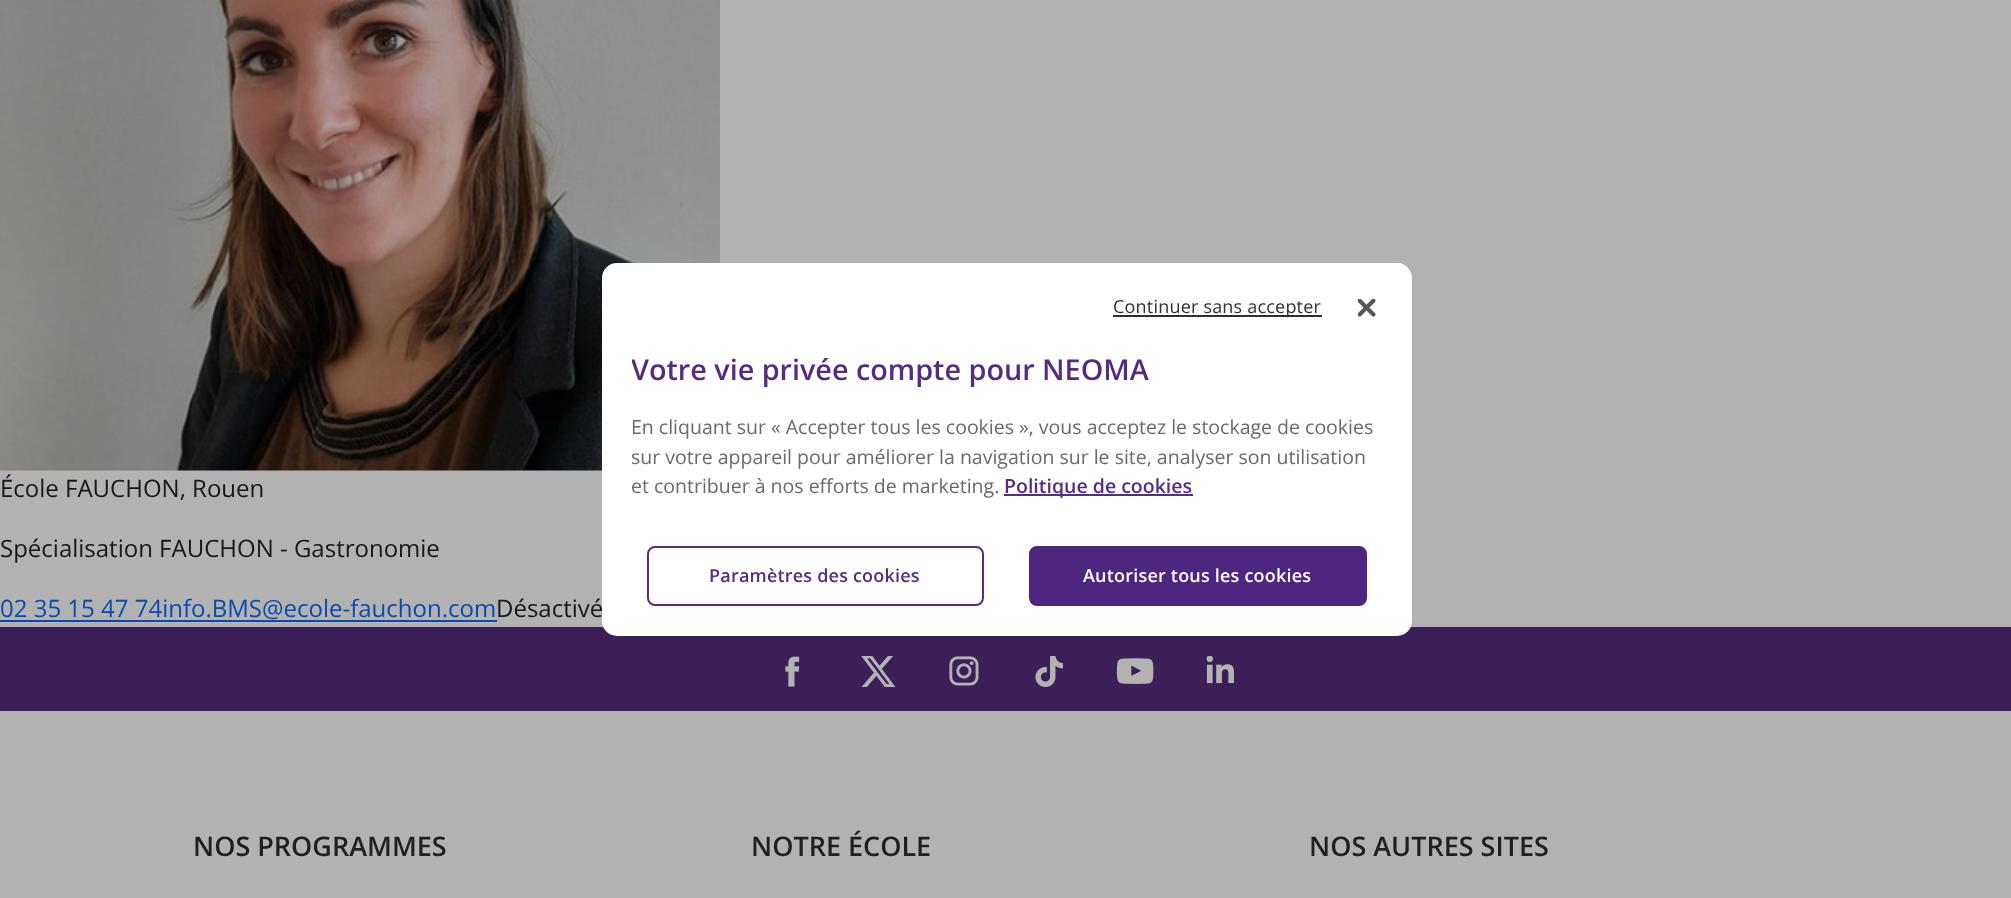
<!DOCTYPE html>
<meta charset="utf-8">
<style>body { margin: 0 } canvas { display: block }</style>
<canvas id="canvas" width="2011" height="898"></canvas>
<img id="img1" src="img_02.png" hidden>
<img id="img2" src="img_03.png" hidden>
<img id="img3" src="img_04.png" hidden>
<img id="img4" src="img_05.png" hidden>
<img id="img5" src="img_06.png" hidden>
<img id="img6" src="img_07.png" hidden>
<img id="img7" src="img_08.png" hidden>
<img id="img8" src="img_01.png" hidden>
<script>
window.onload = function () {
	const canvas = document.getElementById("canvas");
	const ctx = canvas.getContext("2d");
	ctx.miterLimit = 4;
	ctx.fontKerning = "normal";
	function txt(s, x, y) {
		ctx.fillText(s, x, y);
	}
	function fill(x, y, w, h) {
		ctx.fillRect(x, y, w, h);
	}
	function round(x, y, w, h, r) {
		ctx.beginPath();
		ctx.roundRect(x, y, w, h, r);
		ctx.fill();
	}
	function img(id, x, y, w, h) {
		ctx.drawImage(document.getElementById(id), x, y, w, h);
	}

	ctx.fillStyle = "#FFFFFF";
	fill(0, 0, 2011, 898);
	img("img1", 0, 0, 720, 471);
	ctx.fillStyle = "#0D6EFD";
	fill(0, 620, 497, 2);
	ctx.fillStyle = "#562C80";
	fill(0, 627, 2011, 84);
	img("img2", 785, 656, 15, 31);
	img("img3", 861, 656, 35, 31);
	img("img4", 949, 656, 30, 30);
	img("img5", 1035, 656, 29, 31);
	img("img6", 1116, 658, 38, 26);
	img("img7", 1206, 656, 29, 28);
	ctx.font = "24px Open Sans";
	ctx.fillStyle = "#212529";
	txt("École FAUCHON, Rouen", 0, 497);
	txt("Spécialisation FAUCHON - Gastronomie", 0, 557);
	ctx.fillStyle = "#0D6EFD";
	txt("02 35 15 47 74info.BMS@ecole-fauchon.com", 0, 617);
	ctx.fillStyle = "#212529";
	txt("Désactivé", 496, 617);
	ctx.font = "600 27px Open Sans";
	ctx.fillStyle = "#2F2F2F";
	txt("NOS PROGRAMMES", 193, 856);
	txt("NOTRE ÉCOLE", 751, 856);
	txt("NOS AUTRES SITES", 1309, 856);
	ctx.beginPath();
	ctx.roundRect(-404, -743, 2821, 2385, 1021);
	ctx.strokeStyle = "rgba(0, 0, 0, 0.3)";
	ctx.lineWidth = 2012;
	ctx.stroke();
	ctx.fillStyle = "#FFFFFF";
	round(602, 263, 810, 373, 15);
	img("img8", 1358, 299, 18, 18);
	ctx.fillStyle = "#2F2F2F";
	fill(1113, 315, 209, 2);
	ctx.letterSpacing = "0.2px";
	ctx.font = "18px Open Sans";
	txt("Continuer sans accepter", 1113, 313);
	ctx.fillStyle = "#562C80";
	fill(1004, 494, 189, 2);
	ctx.letterSpacing = "0px";
	ctx.font = "600 19.5px Open Sans";
	txt("Politique de cookies", 1004, 493);
	ctx.font = "19.5px Open Sans";
	ctx.fillStyle = "#696969";
	txt("et contribuer à nos efforts de marketing.", 631, 493);
	ctx.save();
	ctx.beginPath();
	ctx.rect(632, 353, 750, 193);
	ctx.clip();
	txt("sur votre appareil pour améliorer la navigation sur le site, analyser son utilisation", 631, 464);
	ctx.restore();
	txt("En cliquant sur « Accepter tous les cookies », vous acceptez le stockage de cookies", 631, 434);
	ctx.save();
	ctx.beginPath();
	ctx.rect(632, 353, 750, 193);
	ctx.clip();
	ctx.font = "600 28.75px Open Sans";
	ctx.fillStyle = "#562C80";
	txt("Votre vie privée compte pour NEOMA", 631, 380);
	ctx.restore();
	ctx.fillStyle = "#4D267F";
	ctx.beginPath();
	ctx.roundRect(1030, 547, 336, 58, 7);
	ctx.fill();
	ctx.strokeStyle = "#4D267F";
	ctx.lineWidth = 2;
	ctx.stroke();
	ctx.letterSpacing = "0.2px";
	ctx.font = "600 18px Open Sans";
	ctx.fillStyle = "#FFFFFF";
	txt("Autoriser tous les cookies", 1083, 582);
	ctx.beginPath();
	ctx.roundRect(648, 547, 335, 58, 7);
	ctx.strokeStyle = "#562C80";
	ctx.stroke();
	ctx.fillStyle = "#562C80";
	txt("Paramètres des cookies", 709, 582);
};
</script>
